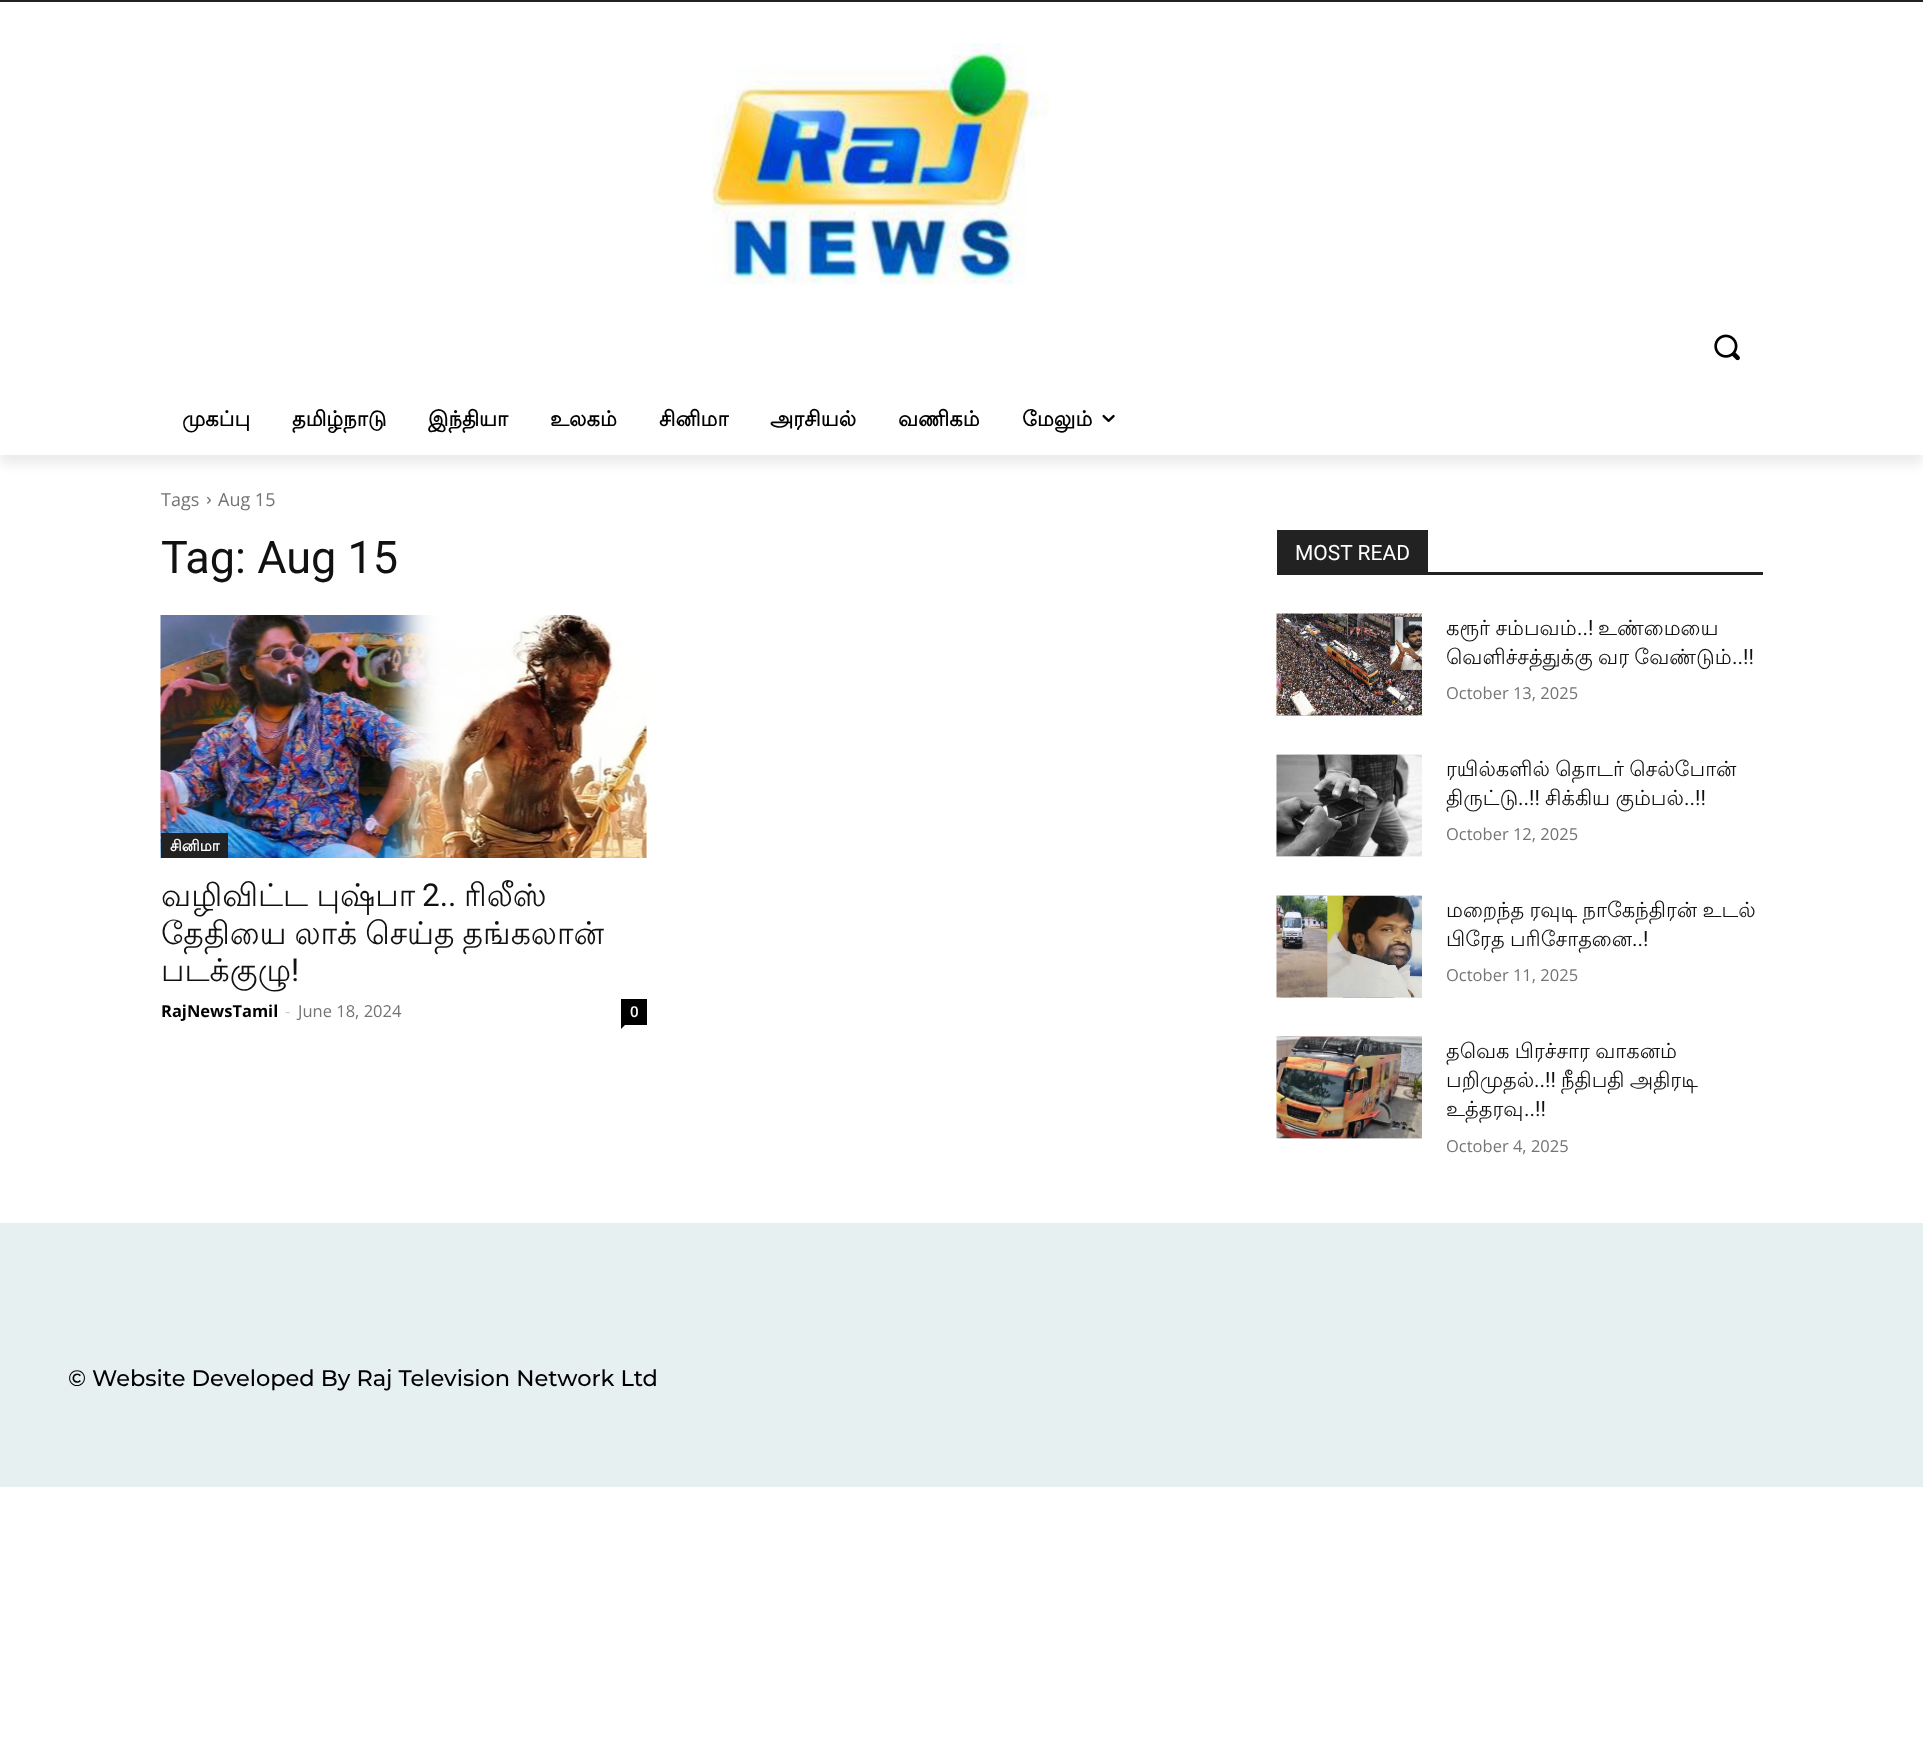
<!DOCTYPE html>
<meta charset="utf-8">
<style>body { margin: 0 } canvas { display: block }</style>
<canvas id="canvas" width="1923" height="1748"></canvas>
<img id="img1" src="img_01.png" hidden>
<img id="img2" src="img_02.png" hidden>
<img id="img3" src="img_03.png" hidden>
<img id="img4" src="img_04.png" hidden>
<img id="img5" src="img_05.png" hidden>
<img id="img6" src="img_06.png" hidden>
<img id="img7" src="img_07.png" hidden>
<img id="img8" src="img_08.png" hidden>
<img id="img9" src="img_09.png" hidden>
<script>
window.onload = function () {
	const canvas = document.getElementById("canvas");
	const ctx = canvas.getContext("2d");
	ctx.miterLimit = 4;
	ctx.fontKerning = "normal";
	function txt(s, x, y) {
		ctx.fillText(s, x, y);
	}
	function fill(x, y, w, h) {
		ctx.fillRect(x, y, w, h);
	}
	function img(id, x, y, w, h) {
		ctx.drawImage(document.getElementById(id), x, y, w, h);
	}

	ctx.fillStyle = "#FFFFFF";
	fill(0, 0, 1923, 1748);
	ctx.fillStyle = "#222222";
	fill(0, 0, 1923, 2);
	img("img1", 711, 43, 338, 242);
	ctx.save();
	ctx.beginPath();
	ctx.moveTo(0, 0);
	ctx.lineTo(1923, 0);
	ctx.lineTo(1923, 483);
	ctx.lineTo(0, 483);
	ctx.closePath();
	ctx.moveTo(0, 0);
	ctx.lineTo(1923, 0);
	ctx.lineTo(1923, 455);
	ctx.lineTo(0, 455);
	ctx.closePath();
	ctx.clip("evenodd");
	ctx.fillStyle = "rgba(0, 0, 0, 0.08)";
	ctx.filter = "blur(6px)";
	ctx.beginPath();
	ctx.rect(0, 9, 1923, 455);
	ctx.fill();
	ctx.filter = "none";
	ctx.restore();
	img("img2", 1714, 334, 26, 27);
	img("img3", 1102, 414, 13, 8);
	img("img4", 207, 496, 4, 8);
	img("img5", 160, 615, 487, 243);
	fill(161, 833, 67, 25);
	ctx.fillStyle = "#000000";
	fill(621, 999, 26, 26);
	ctx.beginPath();
	ctx.moveTo(621, 1024.5);
	ctx.lineTo(625.5, 1024.5);
	ctx.lineTo(621, 1029);
	ctx.closePath();
	ctx.fill();
	ctx.fillStyle = "#222222";
	fill(1277, 572, 486, 3);
	fill(1277, 530, 151, 42);
	img("img6", 1276, 613, 146, 103);
	img("img7", 1276, 754, 146, 103);
	img("img8", 1276, 895, 146, 103);
	img("img9", 1276, 1036, 146, 103);
	ctx.fillStyle = "#E7F0F1";
	fill(0, 1223, 1923, 264);
	ctx.font = "bold 21px Lohit Tamil";
	ctx.fillStyle = "#000000";
	txt("முகப்பு", 182, 426);
	txt("தமிழ்நாடு", 292, 426);
	txt("இந்தியா", 428, 426);
	txt("உலகம்", 550, 426);
	txt("சினிமா", 659, 426);
	txt("அரசியல்", 770, 426);
	txt("வணிகம்", 898, 426);
	txt("மேலும்", 1022, 426);
	ctx.font = "18px Open Sans";
	ctx.fillStyle = "#747474";
	txt("Tags", 161, 506);
	txt("Aug 15", 218, 506);
	ctx.font = "45px Roboto";
	ctx.fillStyle = "#111111";
	txt("Tag: Aug 15", 161, 573);
	ctx.font = "bold 15px Lohit Tamil";
	ctx.fillStyle = "#FFFFFF";
	txt("சினிமா", 170, 851);
	ctx.wordSpacing = "-1px";
	ctx.font = "31.5px Lohit Tamil";
	ctx.fillStyle = "#111111";
	txt("வழிவிட்ட புஷ்பா", 161, 906);
	ctx.wordSpacing = "0px";
	ctx.font = "31.5px Roboto";
	txt("2..", 422, 906);
	ctx.font = "31.5px Lohit Tamil";
	txt("ரிலீஸ்", 464, 906);
	ctx.wordSpacing = "-1.5px";
	txt("தேதியை லாக் செய்த தங்கலான்", 161, 944);
	ctx.wordSpacing = "0px";
	txt("படக்குழு", 161, 981);
	ctx.font = "31.5px Roboto";
	txt("!", 291, 981);
	ctx.font = "bold 16.5px Open Sans";
	ctx.fillStyle = "#000000";
	txt("RajNewsTamil", 161, 1017);
	ctx.font = "16.5px Open Sans";
	ctx.fillStyle = "#CCCCCC";
	txt("-", 285, 1017);
	ctx.fillStyle = "#747474";
	txt("June 18, 2024", 298, 1017);
	ctx.font = "600 15px Open Sans";
	ctx.fillStyle = "#FFFFFF";
	txt("0", 630, 1017);
	ctx.font = "21px Roboto";
	txt("MOST READ", 1295, 560);
	ctx.wordSpacing = "-1px";
	ctx.font = "21px Lohit Tamil";
	ctx.fillStyle = "#111111";
	txt("கரூர் சம்பவம்", 1446, 635);
	ctx.wordSpacing = "0px";
	ctx.font = "21px Roboto";
	txt("..!", 1577, 635);
	ctx.font = "21px Lohit Tamil";
	txt("உண்மையை", 1598, 635);
	ctx.wordSpacing = "-1px";
	txt("வெளிச்சத்துக்கு வர வேண்டும்", 1446, 664);
	ctx.wordSpacing = "0px";
	ctx.font = "21px Roboto";
	txt("..!!", 1732, 664);
	ctx.font = "16.5px Open Sans";
	ctx.fillStyle = "#747474";
	txt("October 13, 2025", 1446, 699);
	ctx.wordSpacing = "-1px";
	ctx.font = "21px Lohit Tamil";
	ctx.fillStyle = "#111111";
	txt("ரயில்களில் தொடர் செல்போன்", 1446, 776);
	ctx.wordSpacing = "0px";
	txt("திருட்டு", 1446, 805);
	ctx.font = "21px Roboto";
	txt("..!!", 1518, 805);
	ctx.wordSpacing = "-1px";
	ctx.font = "21px Lohit Tamil";
	txt("சிக்கிய கும்பல்", 1545, 805);
	ctx.wordSpacing = "0px";
	ctx.font = "21px Roboto";
	txt("..!!", 1684, 805);
	ctx.font = "16.5px Open Sans";
	ctx.fillStyle = "#747474";
	txt("October 12, 2025", 1446, 840);
	ctx.wordSpacing = "-1px";
	ctx.font = "21px Lohit Tamil";
	ctx.fillStyle = "#111111";
	txt("மறைந்த ரவுடி நாகேந்திரன் உடல்", 1446, 917);
	txt("பிரேத பரிசோதனை", 1446, 946);
	ctx.wordSpacing = "0px";
	ctx.font = "21px Roboto";
	txt("..!", 1632, 946);
	ctx.font = "16.5px Open Sans";
	ctx.fillStyle = "#747474";
	txt("October 11, 2025", 1446, 981);
	ctx.wordSpacing = "-1px";
	ctx.font = "21px Lohit Tamil";
	ctx.fillStyle = "#111111";
	txt("தவெக பிரச்சார வாகனம்", 1446, 1058);
	ctx.wordSpacing = "0px";
	txt("பறிமுதல்", 1446, 1087);
	ctx.font = "21px Roboto";
	txt("..!!", 1534, 1087);
	ctx.wordSpacing = "-1px";
	ctx.font = "21px Lohit Tamil";
	txt("நீதிபதி அதிரடி", 1561, 1087);
	ctx.wordSpacing = "0px";
	txt("உத்தரவு", 1446, 1116);
	ctx.font = "21px Roboto";
	txt("..!!", 1524, 1116);
	ctx.font = "16.5px Open Sans";
	ctx.fillStyle = "#747474";
	txt("October 4, 2025", 1446, 1152);
	ctx.font = "500 22.5px Montserrat";
	ctx.fillStyle = "#000000";
	txt("© Website Developed By Raj Television Network Ltd", 68, 1386);
};
</script>
